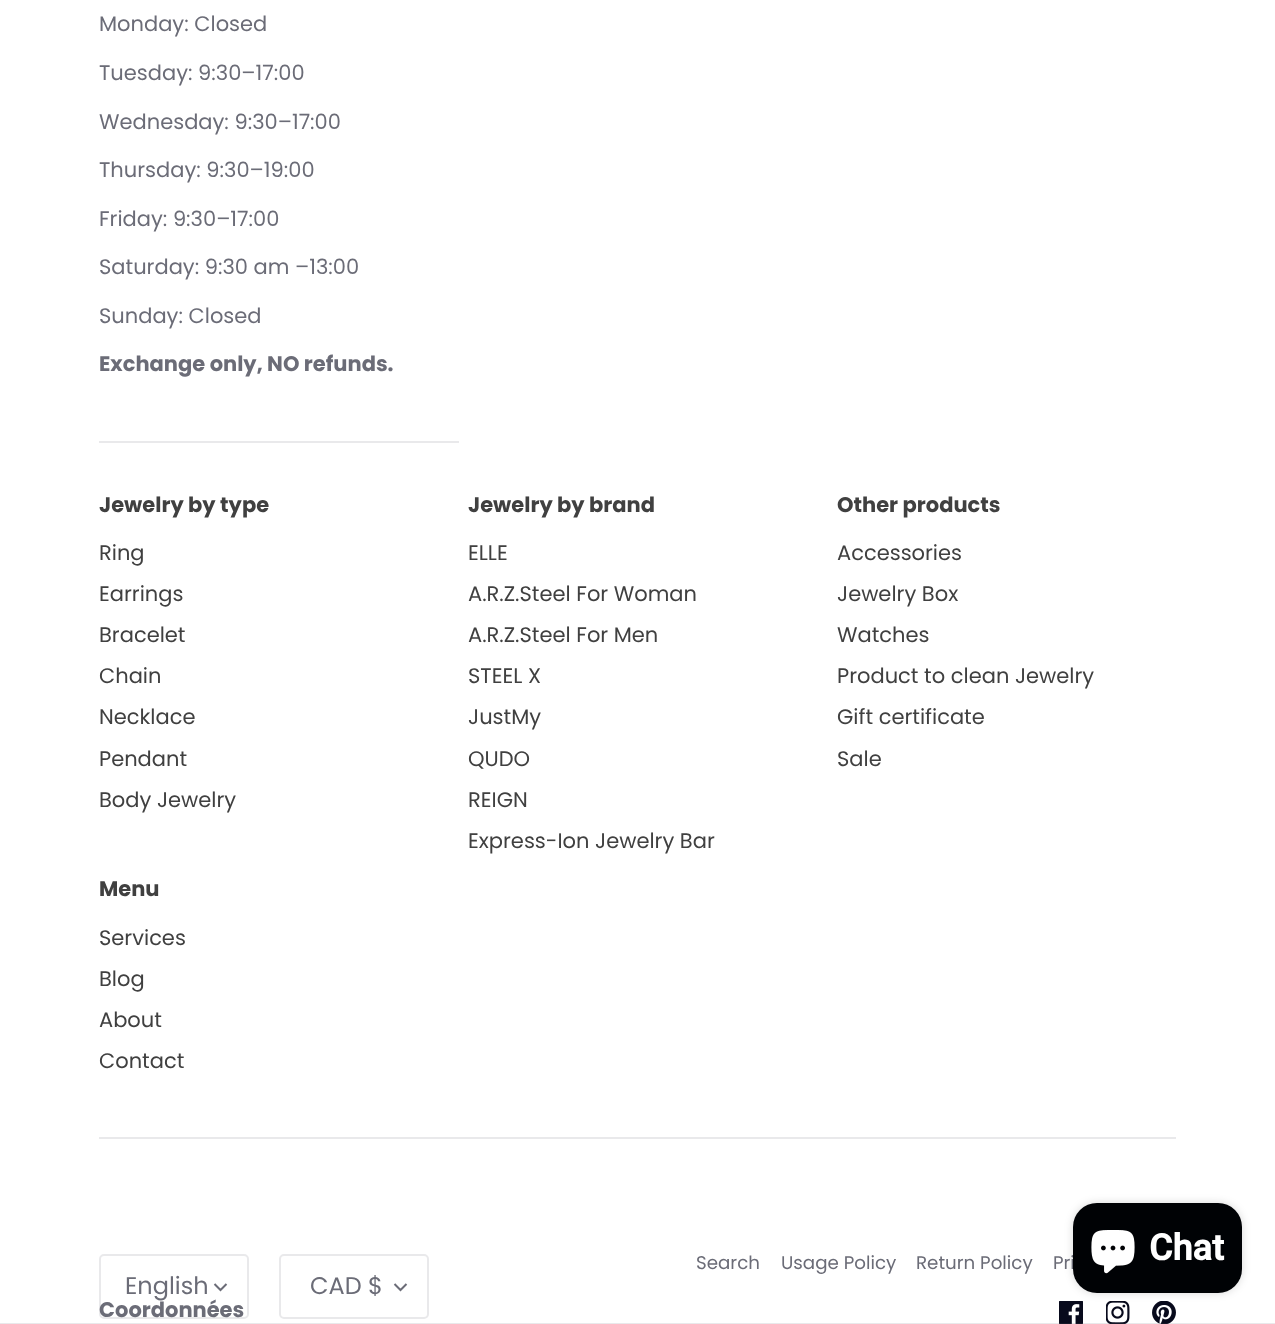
<!DOCTYPE html>
<meta charset="utf-8">
<style>body { margin: 0 } canvas { display: block }</style>
<canvas id="canvas" width="1275" height="1324"></canvas>
<img id="img1" src="img_01.png" hidden>
<img id="img2" src="img_02.png" hidden>
<img id="img3" src="img_03.png" hidden>
<img id="img4" src="img_04.png" hidden>
<script>
window.onload = function () {
	const canvas = document.getElementById("canvas");
	const ctx = canvas.getContext("2d");
	ctx.miterLimit = 4;
	ctx.fontKerning = "normal";
	function txt(s, x, y) {
		ctx.fillText(s, x, y);
	}
	function fill(x, y, w, h) {
		ctx.fillRect(x, y, w, h);
	}
	function round(x, y, w, h, r) {
		ctx.beginPath();
		ctx.roundRect(x, y, w, h, r);
		ctx.fill();
	}
	function img(id, x, y, w, h) {
		ctx.drawImage(document.getElementById(id), x, y, w, h);
	}

	ctx.fillStyle = "#FFFFFF";
	fill(0, 0, 1275, 1324);
	ctx.fillStyle = "#E9E9EB";
	fill(99, 441, 360, 2);
	fill(99, 1137, 1077, 2);
	img("img1", 1059, 1301, 24, 23);
	img("img2", 1106, 1301, 24, 23);
	img("img3", 1152, 1301, 24, 23);
	ctx.beginPath();
	ctx.roundRect(280, 1255, 148, 63, 4);
	ctx.strokeStyle = "#E9E9EB";
	ctx.lineWidth = 2;
	ctx.stroke();
	ctx.beginPath();
	ctx.moveTo(394.5, 1284);
	ctx.lineTo(400.5, 1290);
	ctx.lineTo(406.5, 1284);
	ctx.strokeStyle = "#6B6C77";
	ctx.stroke();
	ctx.fillStyle = "rgba(0, 0, 0, 0.15)";
	ctx.filter = "blur(4px)";
	ctx.beginPath();
	ctx.roundRect(1073, 1203, 169, 90, 24);
	ctx.fill();
	ctx.filter = "none";
	ctx.fillStyle = "rgba(107, 108, 119, 0.15)";
	fill(0, 1323, 1275, 1);
	ctx.font = "21px Poppins";
	ctx.fillStyle = "#6B6C77";
	txt("Monday: Closed", 99, 31);
	txt("Tuesday: 9:30–17:00", 99, 80);
	txt("Wednesday: 9:30–17:00", 99, 129);
	txt("Thursday: 9:30–19:00", 99, 177);
	txt("Friday: 9:30–17:00", 99, 226);
	txt("Saturday: 9:30 am –13:00", 99, 274);
	txt("Sunday: Closed", 99, 323);
	ctx.font = "bold 21px Poppins";
	txt("Exchange only, NO refunds.", 99, 371);
	ctx.fillStyle = "#404040";
	txt("Jewelry by type", 99, 512);
	ctx.font = "21px Poppins";
	txt("Ring", 99, 560);
	txt("Earrings", 99, 601);
	txt("Bracelet", 99, 642);
	txt("Chain", 99, 683);
	txt("Necklace", 99, 724);
	txt("Pendant", 99, 766);
	txt("Body Jewelry", 99, 807);
	ctx.font = "bold 21px Poppins";
	txt("Jewelry by brand", 468, 512);
	ctx.font = "21px Poppins";
	txt("ELLE", 468, 560);
	txt("A.R.Z.Steel For Woman", 468, 601);
	txt("A.R.Z.Steel For Men", 468, 642);
	txt("STEEL X", 468, 683);
	txt("JustMy", 468, 724);
	txt("QUDO", 468, 766);
	txt("REIGN", 468, 807);
	txt("Express-Ion Jewelry Bar", 468, 848);
	ctx.font = "bold 21px Poppins";
	txt("Other products", 837, 512);
	ctx.font = "21px Poppins";
	txt("Accessories", 837, 560);
	txt("Jewelry Box", 837, 601);
	txt("Watches", 837, 642);
	txt("Product to clean Jewelry", 837, 683);
	txt("Gift certificate", 837, 724);
	txt("Sale", 837, 766);
	ctx.font = "bold 21px Poppins";
	txt("Menu", 99, 896);
	ctx.font = "21px Poppins";
	txt("Services", 99, 945);
	txt("Blog", 99, 986);
	txt("About", 99, 1027);
	txt("Contact", 99, 1068);
	ctx.font = "18.25px Poppins";
	ctx.fillStyle = "#6B6C77";
	txt("Search", 696, 1269);
	txt("Usage Policy", 781, 1269);
	txt("Return Policy", 916, 1269);
	txt("Pri", 1053, 1269);
	ctx.font = "24px Poppins";
	txt("CAD $", 310, 1294);
	ctx.font = "bold 21px Poppins";
	txt("Coordonnées", 99, 1317);
	ctx.beginPath();
	ctx.roundRect(100, 1255, 148, 63, 4);
	ctx.strokeStyle = "rgba(107, 108, 119, 0.15)";
	ctx.stroke();
	ctx.beginPath();
	ctx.moveTo(214.5, 1284);
	ctx.lineTo(220.5, 1290);
	ctx.lineTo(226.5, 1284);
	ctx.strokeStyle = "#6B6C77";
	ctx.stroke();
	ctx.font = "24px Poppins";
	txt("English", 125, 1294);
	ctx.fillStyle = "#000205";
	round(1073, 1203, 169, 90, 24);
	img("img4", 1091, 1230, 44, 44);
	ctx.font = "bold 36px Roboto";
	ctx.fillStyle = "#FFFFFF";
	txt("Chat", 1149, 1260);
};
</script>
